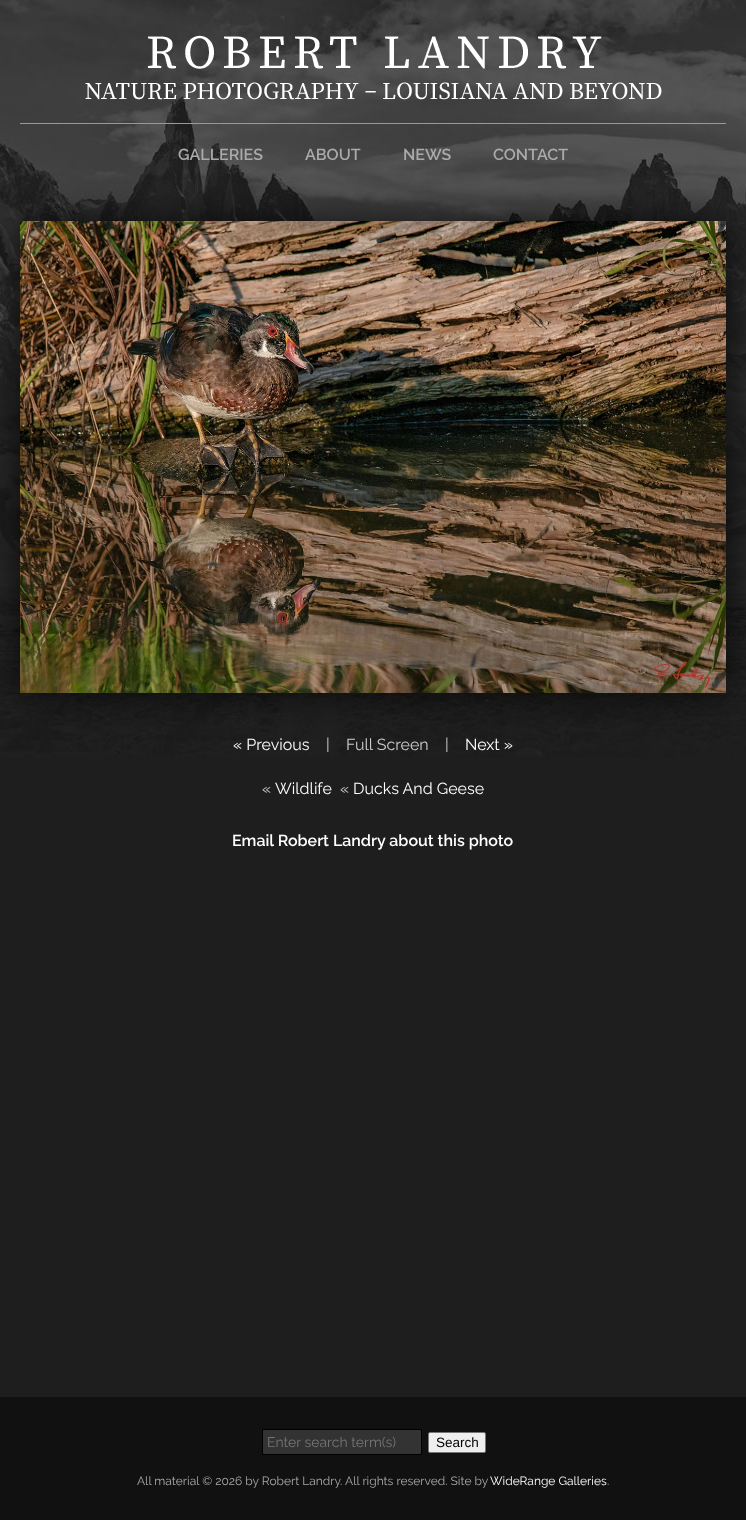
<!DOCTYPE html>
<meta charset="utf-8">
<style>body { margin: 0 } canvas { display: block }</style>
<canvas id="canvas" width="746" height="1520"></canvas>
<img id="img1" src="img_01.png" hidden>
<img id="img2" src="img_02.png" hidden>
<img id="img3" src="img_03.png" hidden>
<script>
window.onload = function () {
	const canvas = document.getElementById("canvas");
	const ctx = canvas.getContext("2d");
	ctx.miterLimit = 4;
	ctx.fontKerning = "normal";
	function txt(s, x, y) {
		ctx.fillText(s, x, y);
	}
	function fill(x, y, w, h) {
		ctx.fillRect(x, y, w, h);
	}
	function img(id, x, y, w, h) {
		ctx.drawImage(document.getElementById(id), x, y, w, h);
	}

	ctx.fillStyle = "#1E1E1E";
	fill(0, 0, 746, 1520);
	img("img1", 0, 0, 746, 757);
	img("img2", 85, 35, 577, 65);
	ctx.fillStyle = "#999999";
	fill(20, 123, 706, 1);
	ctx.fillStyle = "rgba(0, 0, 0, 0.8)";
	ctx.filter = "blur(20px)";
	ctx.beginPath();
	ctx.rect(20, 221, 706, 472);
	ctx.fill();
	ctx.filter = "none";
	img("img3", 20, 221, 706, 472);
	ctx.fillStyle = "#111111";
	fill(0, 1397, 746, 123);
	ctx.fillStyle = "#333333";
	ctx.beginPath();
	ctx.rect(262.5, 1429.5, 159, 25);
	ctx.fill();
	ctx.strokeStyle = "#000000";
	ctx.stroke();
	ctx.fillStyle = "#EFEFEF";
	ctx.beginPath();
	ctx.roundRect(428.5, 1432.5, 57, 20, 1.5);
	ctx.fill();
	ctx.strokeStyle = "#767676";
	ctx.stroke();
	ctx.font = "600 16px Raleway";
	ctx.fillStyle = "#AAAAAA";
	txt("GALLERIES", 178, 160);
	txt("ABOUT", 305, 160);
	txt("NEWS", 403, 160);
	txt("CONTACT", 493, 160);
	ctx.font = "16px Raleway";
	ctx.fillStyle = "#FFFFFF";
	txt("« Previous", 233, 750);
	ctx.fillStyle = "#CCCCCC";
	txt("|", 326, 750);
	txt("Full Screen", 346, 750);
	txt("|", 445, 750);
	ctx.fillStyle = "#FFFFFF";
	txt("Next »", 465, 750);
	ctx.fillStyle = "#CCCCCC";
	txt("«", 262, 794);
	ctx.fillStyle = "#FFFFFF";
	txt("Wildlife", 275, 794);
	ctx.fillStyle = "#CCCCCC";
	txt("«", 340, 794);
	ctx.fillStyle = "#FFFFFF";
	txt("Ducks And Geese", 353, 794);
	ctx.font = "600 16px Raleway";
	txt("Email Robert Landry about this photo", 232, 846);
	ctx.font = "14px Raleway";
	ctx.fillStyle = "#757575";
	txt("Enter search term(s)", 267, 1447);
	ctx.font = "13.5px Liberation Sans";
	ctx.fillStyle = "#000000";
	txt("Search", 436, 1447);
	ctx.font = "12px Raleway";
	ctx.fillStyle = "#AAAAAA";
	txt("All material © 2026 by Robert Landry. All rights reserved. Site by", 137, 1485);
	ctx.fillStyle = "#FFFFFF";
	txt("WideRange Galleries", 490, 1485);
	ctx.fillStyle = "#AAAAAA";
	txt(".", 607, 1485);
};
</script>
